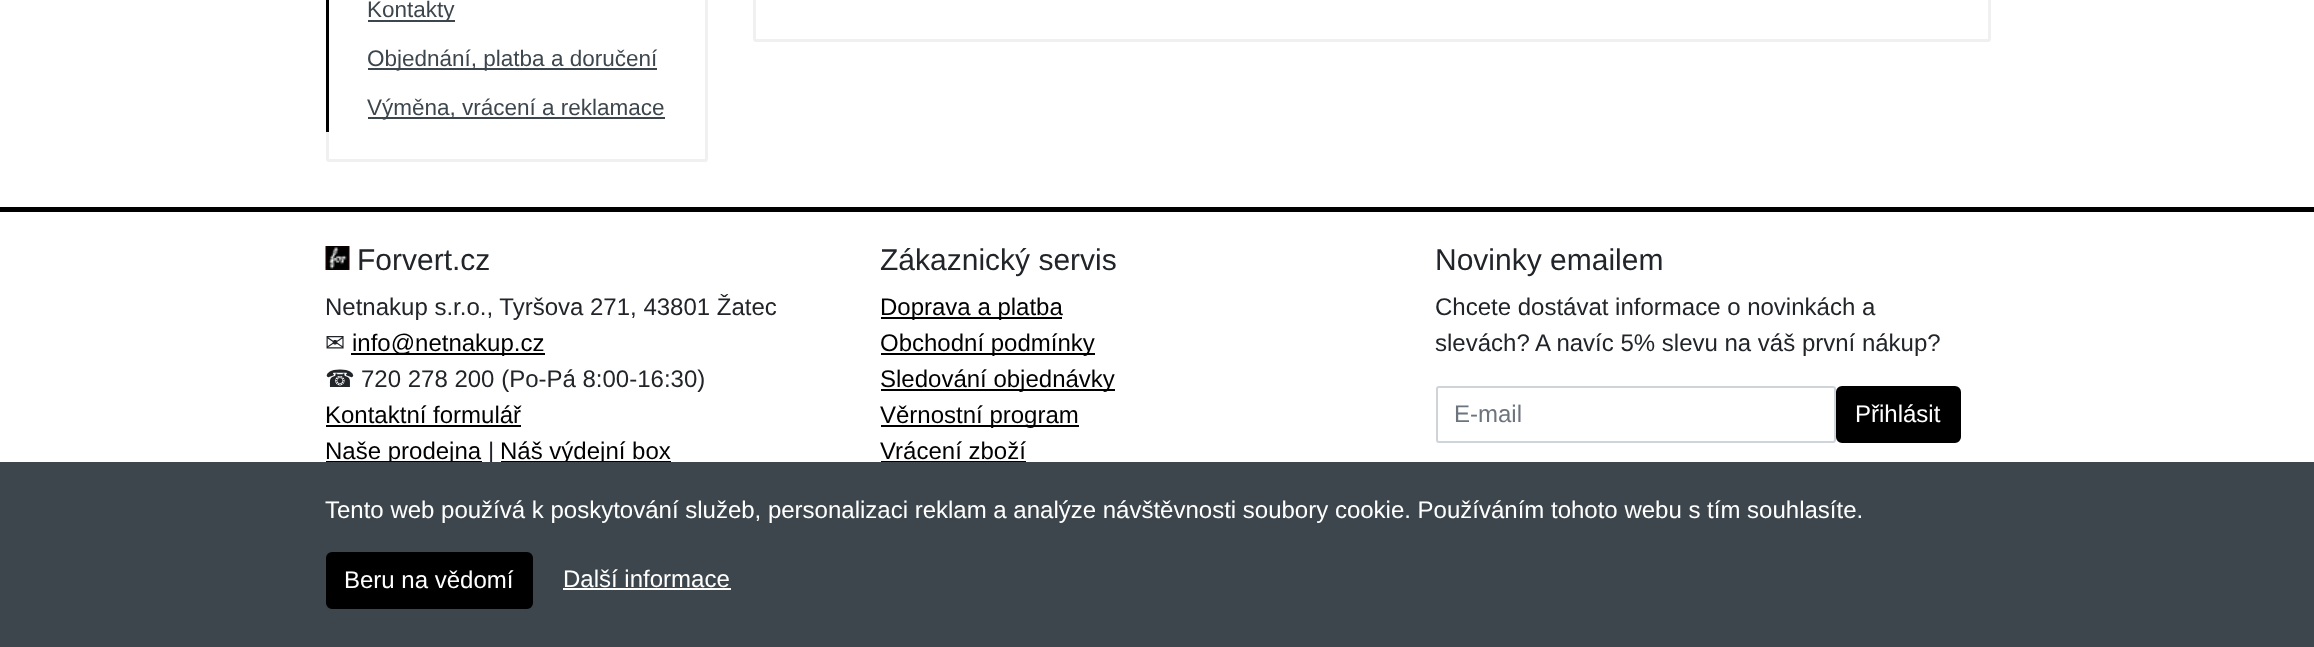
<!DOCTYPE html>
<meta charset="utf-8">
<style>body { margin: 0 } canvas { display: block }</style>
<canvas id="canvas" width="2314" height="647"></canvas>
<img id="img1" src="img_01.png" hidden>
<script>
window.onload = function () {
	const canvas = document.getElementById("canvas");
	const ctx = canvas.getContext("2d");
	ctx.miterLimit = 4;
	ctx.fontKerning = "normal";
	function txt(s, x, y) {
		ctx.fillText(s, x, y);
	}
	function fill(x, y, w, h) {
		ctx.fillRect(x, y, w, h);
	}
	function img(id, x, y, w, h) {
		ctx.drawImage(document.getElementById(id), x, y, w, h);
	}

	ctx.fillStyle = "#FFFFFF";
	fill(0, 0, 2314, 647);
	ctx.beginPath();
	ctx.roundRect(327.5, -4.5, 379, 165, 1.5);
	ctx.strokeStyle = "#F0F0F0";
	ctx.lineWidth = 3;
	ctx.stroke();
	ctx.fillStyle = "#000000";
	fill(326, 0, 3, 132);
	ctx.fillStyle = "#3D464D";
	fill(368, 20, 87, 2);
	fill(368, 68, 289, 2);
	fill(368, 117, 297, 2);
	ctx.beginPath();
	ctx.roundRect(754.5, -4.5, 1235, 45, 1.5);
	ctx.stroke();
	ctx.fillStyle = "#000000";
	fill(0, 207, 2314, 5);
	img("img1", 325, 246, 25, 24);
	fill(351, 353, 194, 2);
	fill(326, 425, 195, 2);
	fill(326, 461, 156, 1);
	fill(501, 461, 170, 1);
	fill(881, 317, 181, 2);
	fill(881, 353, 214, 2);
	fill(881, 389, 234, 2);
	fill(881, 425, 198, 2);
	fill(881, 461, 145, 1);
	ctx.beginPath();
	ctx.roundRect(1437, 387, 398, 55, 2);
	ctx.strokeStyle = "#CED4DA";
	ctx.lineWidth = 2;
	ctx.stroke();
	ctx.beginPath();
	ctx.roundRect(1837, 387, 123, 55, 5);
	ctx.fill();
	ctx.strokeStyle = "#000000";
	ctx.stroke();
	ctx.font = "22.5px Liberation Sans";
	ctx.fillStyle = "#3D464D";
	txt("Kontakty", 367, 17);
	txt("Objednání, platba a doručení", 367, 66);
	txt("Výměna, vrácení a reklamace", 367, 115);
	ctx.font = "30px Liberation Sans";
	ctx.fillStyle = "#212529";
	txt("Forvert.cz", 357, 270);
	ctx.font = "24px Liberation Sans";
	txt("Netnakup s.r.o., Tyršova 271, 43801 Žatec", 325, 315);
	ctx.font = "24px DejaVu Sans";
	txt("✉", 325, 351);
	ctx.font = "24px Liberation Sans";
	ctx.fillStyle = "#000000";
	txt("info@netnakup.cz", 352, 351);
	ctx.font = "24px DejaVu Sans";
	ctx.fillStyle = "#212529";
	txt("☎", 325, 387);
	ctx.font = "24px Liberation Sans";
	txt("720 278 200 (Po-Pá 8:00-16:30)", 361, 387);
	ctx.fillStyle = "#000000";
	txt("Kontaktní formulář", 325, 423);
	txt("Naše prodejna", 325, 459);
	ctx.fillStyle = "#212529";
	txt("|", 488, 459);
	ctx.fillStyle = "#000000";
	txt("Náš výdejní box", 500, 459);
	ctx.font = "30px Liberation Sans";
	ctx.fillStyle = "#212529";
	txt("Zákaznický servis", 880, 270);
	ctx.font = "24px Liberation Sans";
	ctx.fillStyle = "#000000";
	txt("Doprava a platba", 880, 315);
	txt("Obchodní podmínky", 880, 351);
	txt("Sledování objednávky", 880, 387);
	txt("Věrnostní program", 880, 423);
	txt("Vrácení zboží", 880, 459);
	ctx.font = "30px Liberation Sans";
	ctx.fillStyle = "#212529";
	txt("Novinky emailem", 1435, 270);
	ctx.font = "24px Liberation Sans";
	txt("Chcete dostávat informace o novinkách a", 1435, 315);
	txt("slevách? A navíc 5% slevu na váš první nákup?", 1435, 351);
	ctx.fillStyle = "#6C757D";
	txt("E-mail", 1454, 422);
	ctx.fillStyle = "#FFFFFF";
	txt("Přihlásit", 1855, 422);
	ctx.fillStyle = "#3D464D";
	fill(0, 462, 2314, 185);
	ctx.fillStyle = "#FFFFFF";
	txt("Tento web používá k poskytování služeb, personalizaci reklam a analýze návštěvnosti soubory cookie. Používáním tohoto webu s tím souhlasíte.", 325, 518);
	ctx.fillStyle = "#000000";
	ctx.beginPath();
	ctx.roundRect(327, 553, 205, 55, 5);
	ctx.fill();
	ctx.stroke();
	ctx.fillStyle = "#FFFFFF";
	txt("Beru na vědomí", 344, 588);
	txt("Další informace", 563, 587);
	fill(563, 588, 168, 2);
};
</script>
